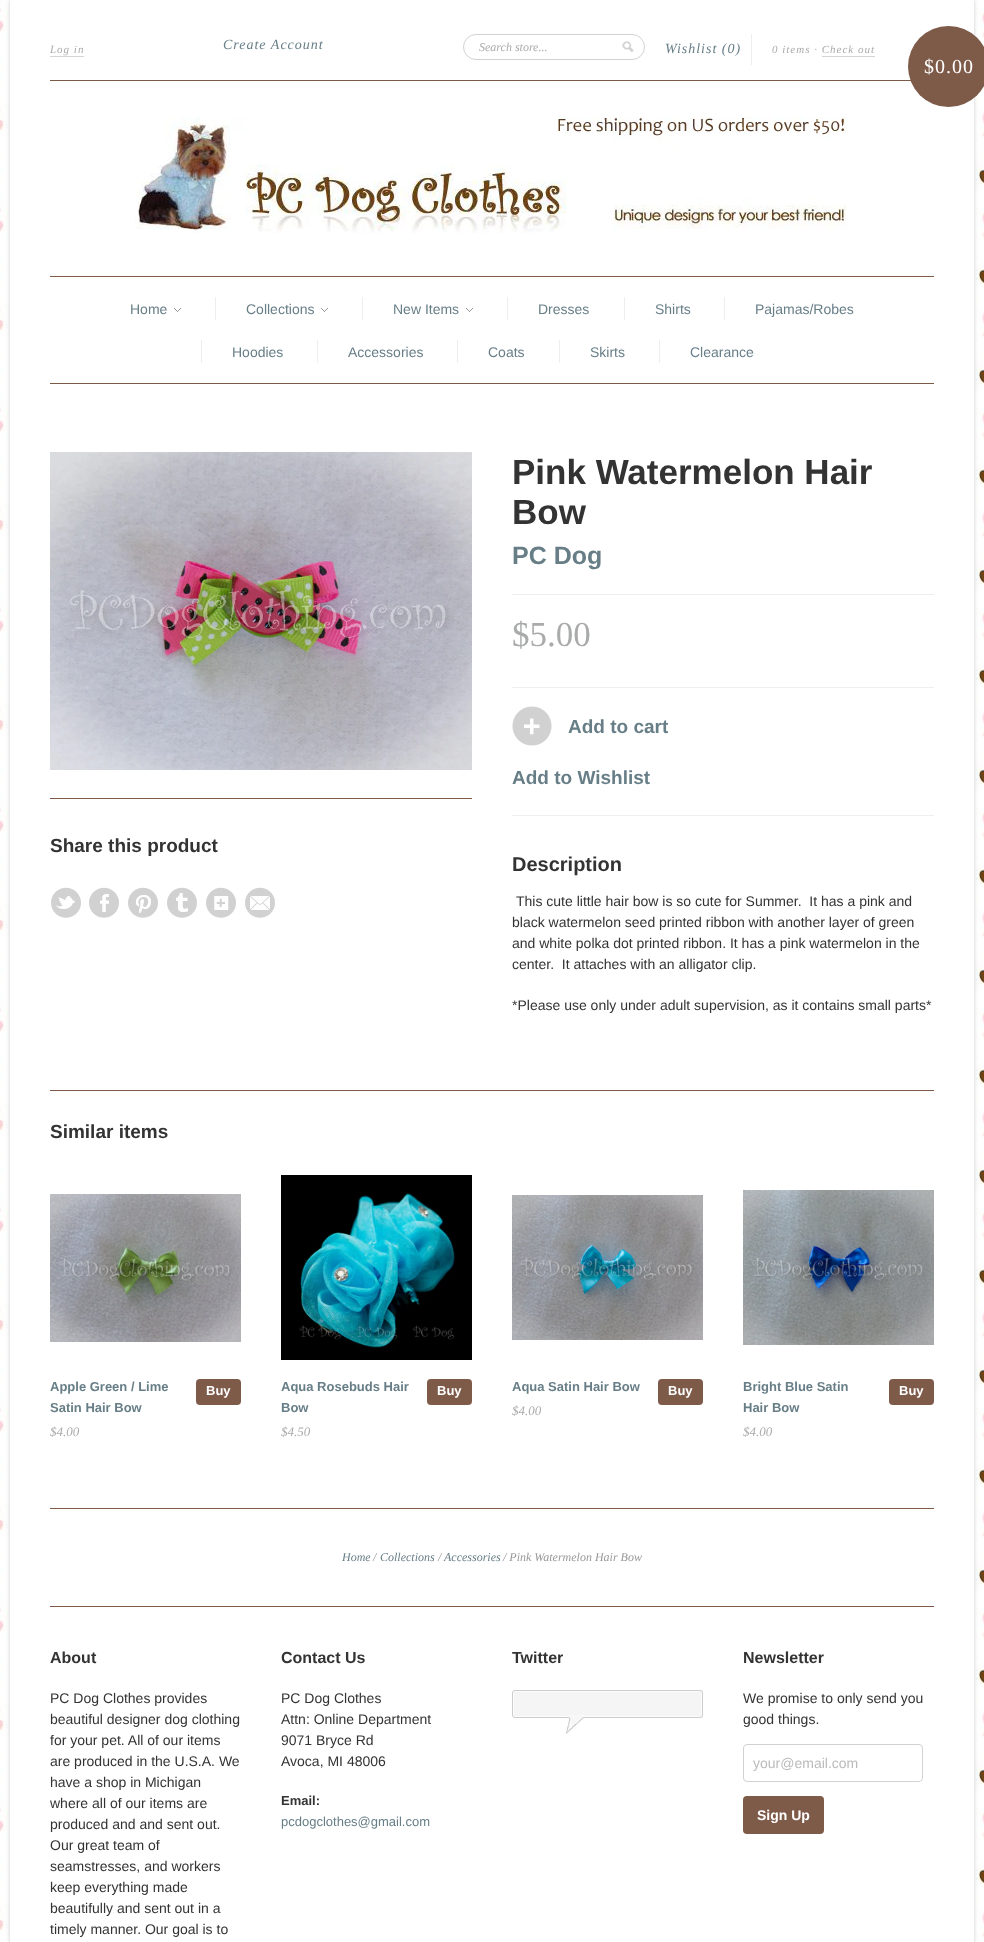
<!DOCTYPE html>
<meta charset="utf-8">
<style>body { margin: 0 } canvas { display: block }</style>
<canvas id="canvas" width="984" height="1942"></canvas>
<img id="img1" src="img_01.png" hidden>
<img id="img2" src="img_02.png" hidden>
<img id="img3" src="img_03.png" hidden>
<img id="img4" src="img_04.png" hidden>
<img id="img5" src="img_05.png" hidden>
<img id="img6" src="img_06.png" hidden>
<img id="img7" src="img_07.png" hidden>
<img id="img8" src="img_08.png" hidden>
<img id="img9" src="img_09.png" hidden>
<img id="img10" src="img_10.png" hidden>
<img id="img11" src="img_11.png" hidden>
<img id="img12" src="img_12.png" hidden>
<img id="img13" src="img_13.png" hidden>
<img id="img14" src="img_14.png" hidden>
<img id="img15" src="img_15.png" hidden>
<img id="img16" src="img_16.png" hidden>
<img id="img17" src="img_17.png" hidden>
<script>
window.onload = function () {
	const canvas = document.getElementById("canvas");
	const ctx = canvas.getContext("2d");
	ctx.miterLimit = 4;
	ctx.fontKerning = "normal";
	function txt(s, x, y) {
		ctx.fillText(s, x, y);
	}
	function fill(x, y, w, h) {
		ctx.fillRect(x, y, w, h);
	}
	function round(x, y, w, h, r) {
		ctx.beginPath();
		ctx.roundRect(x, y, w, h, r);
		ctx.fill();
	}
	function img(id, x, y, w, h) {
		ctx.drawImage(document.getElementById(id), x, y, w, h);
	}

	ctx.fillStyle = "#FFFFFF";
	fill(0, 0, 984, 1942);
	img("img1", 0, 0, 984, 1942);
	ctx.fillStyle = "rgba(0, 0, 0, 0.2)";
	ctx.filter = "blur(2px)";
	ctx.beginPath();
	ctx.rect(10, 0, 964, 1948);
	ctx.fill();
	ctx.filter = "none";
	ctx.fillStyle = "#FFFFFF";
	fill(10, 0, 964, 1942);
	ctx.fillStyle = "#7E5A49";
	fill(50, 383, 884, 1);
	fill(50, 80, 861, 1);
	ctx.fillStyle = "#D4D4D4";
	fill(50, 56, 34, 1);
	ctx.beginPath();
	ctx.roundRect(463.5, 34.5, 181, 25, 12.5);
	ctx.strokeStyle = "#D2D2D2";
	ctx.stroke();
	img("img2", 622, 41, 12, 11);
	ctx.fillStyle = "#EEEEEE";
	fill(751, 34, 1, 31);
	ctx.fillStyle = "#D4D4D4";
	fill(822, 56, 53, 1);
	ctx.fillStyle = "#7E5A49";
	ctx.beginPath();
	ctx.arc(948.5, 66.5, 40.5, 0, Math.PI * 2);
	ctx.fill();
	img("img3", 135, 117, 712, 116);
	fill(50, 276, 884, 1);
	img("img4", 174, 308, 7, 4);
	ctx.fillStyle = "#EEEEEE";
	fill(215, 297, 1, 23);
	img("img4", 321, 308, 7, 4);
	fill(362, 297, 1, 23);
	img("img4", 466, 308, 7, 4);
	fill(507, 297, 1, 23);
	fill(624, 297, 1, 23);
	fill(724, 297, 1, 23);
	fill(201, 340, 1, 23);
	fill(317, 340, 1, 23);
	fill(457, 340, 1, 23);
	fill(559, 340, 1, 23);
	fill(659, 340, 1, 23);
	ctx.fillStyle = "#7E5A49";
	fill(50, 1090, 884, 1);
	img("img5", 50, 452, 422, 318);
	fill(50, 798, 422, 1);
	img("img6", 51, 887, 30, 31);
	img("img7", 89, 887, 30, 31);
	img("img8", 128, 887, 30, 31);
	img("img9", 167, 887, 30, 31);
	img("img10", 206, 887, 30, 31);
	img("img11", 245, 887, 30, 31);
	ctx.fillStyle = "#EEEEEE";
	fill(512, 594, 422, 1);
	fill(512, 687, 422, 1);
	fill(512, 815, 422, 1);
	img("img12", 512, 706, 40, 40);
	ctx.fillStyle = "#7E5A49";
	fill(50, 1508, 884, 1);
	img("img13", 50, 1194, 191, 148);
	round(196, 1379, 45, 26, 4);
	img("img14", 281, 1175, 191, 185);
	round(427, 1379, 45, 26, 4);
	img("img15", 512, 1195, 191, 145);
	round(658, 1379, 45, 26, 4);
	img("img16", 743, 1190, 191, 155);
	round(889, 1379, 45, 26, 4);
	fill(50, 1606, 884, 1);
	ctx.fillStyle = "#F5F5F5";
	round(512, 1690, 191, 28, 3);
	ctx.beginPath();
	ctx.roundRect(513.5, 1691.5, 188, 25, 1.5);
	ctx.strokeStyle = "#FDFDFD";
	ctx.stroke();
	ctx.beginPath();
	ctx.roundRect(512.5, 1690.5, 190, 27, 2.5);
	ctx.strokeStyle = "#CCCCCC";
	ctx.stroke();
	img("img17", 566, 1715, 18, 19);
	ctx.beginPath();
	ctx.roundRect(743.5, 1744.5, 179, 37, 3.5);
	ctx.strokeStyle = "#D2D2D2";
	ctx.stroke();
	ctx.fillStyle = "#7E5A49";
	round(743, 1796, 81, 38, 4);
	ctx.letterSpacing = "1px";
	ctx.font = "italic 11px Liberation Serif";
	ctx.fillStyle = "#A9AAAA";
	txt("Log in", 50, 53);
	ctx.font = "italic 14px Liberation Serif";
	ctx.fillStyle = "#677E87";
	txt("Create Account", 223, 49);
	ctx.letterSpacing = "0px";
	ctx.font = "italic 12px Liberation Serif";
	ctx.fillStyle = "#A9AAAA";
	txt("Search store...", 479, 51);
	ctx.letterSpacing = "1px";
	ctx.font = "italic 14px Liberation Serif";
	ctx.fillStyle = "#677E87";
	txt("Wishlist (0)", 665, 53);
	ctx.font = "italic 11px Liberation Serif";
	ctx.fillStyle = "#A9AAAA";
	txt("0 items · Check out", 772, 53);
	ctx.font = "20px Liberation Serif";
	ctx.fillStyle = "#FFFFFF";
	txt("$0.00", 924, 73);
	ctx.letterSpacing = "0px";
	ctx.font = "14px Liberation Sans";
	ctx.fillStyle = "#677E87";
	txt("Home", 130, 314);
	txt("Collections", 246, 314);
	txt("New Items", 393, 314);
	txt("Dresses", 538, 314);
	txt("Shirts", 655, 314);
	txt("Pajamas/Robes", 755, 314);
	txt("Hoodies", 232, 357);
	txt("Accessories", 348, 357);
	txt("Coats", 488, 357);
	txt("Skirts", 590, 357);
	txt("Clearance", 690, 357);
	ctx.font = "bold 19px Liberation Sans";
	ctx.fillStyle = "#333333";
	txt("Share this product", 50, 852);
	ctx.font = "bold 35px Liberation Sans";
	txt("Pink Watermelon Hair", 512, 484);
	txt("Bow", 512, 524);
	ctx.font = "bold 25px Liberation Sans";
	ctx.fillStyle = "#677E87";
	txt("PC Dog", 512, 564);
	ctx.font = "35px Liberation Serif";
	ctx.fillStyle = "#A9AAAA";
	txt("$5.00", 512, 646);
	ctx.font = "bold 19px Liberation Sans";
	ctx.fillStyle = "#677E87";
	txt("Add to cart", 568, 733);
	txt("Add to Wishlist", 512, 784);
	ctx.font = "bold 20px Liberation Sans";
	ctx.fillStyle = "#333333";
	txt("Description", 512, 871);
	ctx.font = "14px Liberation Sans";
	txt("This cute little hair bow is so cute for Summer.  It has a pink and", 516, 906);
	txt("black watermelon seed printed ribbon with another layer of green", 512, 927);
	txt("and white polka dot printed ribbon. It has a pink watermelon in the", 512, 948);
	txt("center.  It attaches with an alligator clip.", 512, 969);
	txt("*Please use only under adult supervision, as it contains small parts*", 512, 1010);
	ctx.font = "bold 19px Liberation Sans";
	txt("Similar items", 50, 1138);
	ctx.font = "bold 13px Liberation Sans";
	ctx.fillStyle = "#677E87";
	txt("Apple Green / Lime", 50, 1391);
	txt("Satin Hair Bow", 50, 1412);
	ctx.font = "italic 13px Liberation Serif";
	ctx.fillStyle = "#A9AAAA";
	txt("$4.00", 50, 1436);
	ctx.font = "bold 13px Liberation Sans";
	ctx.fillStyle = "#FFFFFF";
	txt("Buy", 206, 1395);
	ctx.fillStyle = "#677E87";
	txt("Aqua Rosebuds Hair", 281, 1391);
	txt("Bow", 281, 1412);
	ctx.font = "italic 13px Liberation Serif";
	ctx.fillStyle = "#A9AAAA";
	txt("$4.50", 281, 1436);
	ctx.font = "bold 13px Liberation Sans";
	ctx.fillStyle = "#FFFFFF";
	txt("Buy", 437, 1395);
	ctx.fillStyle = "#677E87";
	txt("Aqua Satin Hair Bow", 512, 1391);
	ctx.font = "italic 13px Liberation Serif";
	ctx.fillStyle = "#A9AAAA";
	txt("$4.00", 512, 1415);
	ctx.font = "bold 13px Liberation Sans";
	ctx.fillStyle = "#FFFFFF";
	txt("Buy", 668, 1395);
	ctx.fillStyle = "#677E87";
	txt("Bright Blue Satin", 743, 1391);
	txt("Hair Bow", 743, 1412);
	ctx.font = "italic 13px Liberation Serif";
	ctx.fillStyle = "#A9AAAA";
	txt("$4.00", 743, 1436);
	ctx.font = "bold 13px Liberation Sans";
	ctx.fillStyle = "#FFFFFF";
	txt("Buy", 899, 1395);
	ctx.font = "italic 12px Liberation Serif";
	ctx.fillStyle = "#677E87";
	txt("Home", 342, 1561);
	ctx.fillStyle = "#999999";
	txt("/", 373, 1561);
	ctx.fillStyle = "#677E87";
	txt("Collections", 380, 1561);
	ctx.fillStyle = "#999999";
	txt("/", 438, 1561);
	ctx.fillStyle = "#677E87";
	txt("Accessories", 444, 1561);
	ctx.fillStyle = "#999999";
	txt("/ Pink Watermelon Hair Bow", 503, 1561);
	ctx.font = "bold 16px Liberation Sans";
	ctx.fillStyle = "#333333";
	txt("About", 50, 1663);
	ctx.font = "14px Liberation Sans";
	txt("PC Dog Clothes provides", 50, 1703);
	txt("beautiful designer dog clothing", 50, 1724);
	txt("for your pet. All of our items", 50, 1745);
	txt("are produced in the U.S.A. We", 50, 1766);
	txt("have a shop in Michigan", 50, 1787);
	txt("where all of our items are", 50, 1808);
	txt("produced and and sent out.", 50, 1829);
	txt("Our great team of", 50, 1850);
	txt("seamstresses, and workers", 50, 1871);
	txt("keep everything made", 50, 1892);
	txt("beautifully and sent out in a", 50, 1913);
	txt("timely manner. Our goal is to", 50, 1934);
	ctx.font = "bold 16px Liberation Sans";
	txt("Contact Us", 281, 1663);
	ctx.font = "14px Liberation Sans";
	txt("PC Dog Clothes", 281, 1703);
	txt("Attn: Online Department", 281, 1724);
	txt("9071 Bryce Rd", 281, 1745);
	txt("Avoca, MI 48006", 281, 1766);
	ctx.font = "bold 13px Liberation Sans";
	txt("Email:", 281, 1805);
	ctx.font = "13px Liberation Sans";
	ctx.fillStyle = "#677E87";
	txt("pcdogclothes@gmail.com", 281, 1826);
	ctx.font = "bold 16px Liberation Sans";
	ctx.fillStyle = "#333333";
	txt("Twitter", 512, 1663);
	txt("Newsletter", 743, 1663);
	ctx.font = "14px Liberation Sans";
	txt("We promise to only send you", 743, 1703);
	txt("good things.", 743, 1724);
	ctx.fillStyle = "#BBBBBB";
	txt("your@email.com", 753, 1768);
	ctx.font = "bold 14px Liberation Sans";
	ctx.fillStyle = "#FFFFFF";
	txt("Sign Up", 757, 1820);
};
</script>
